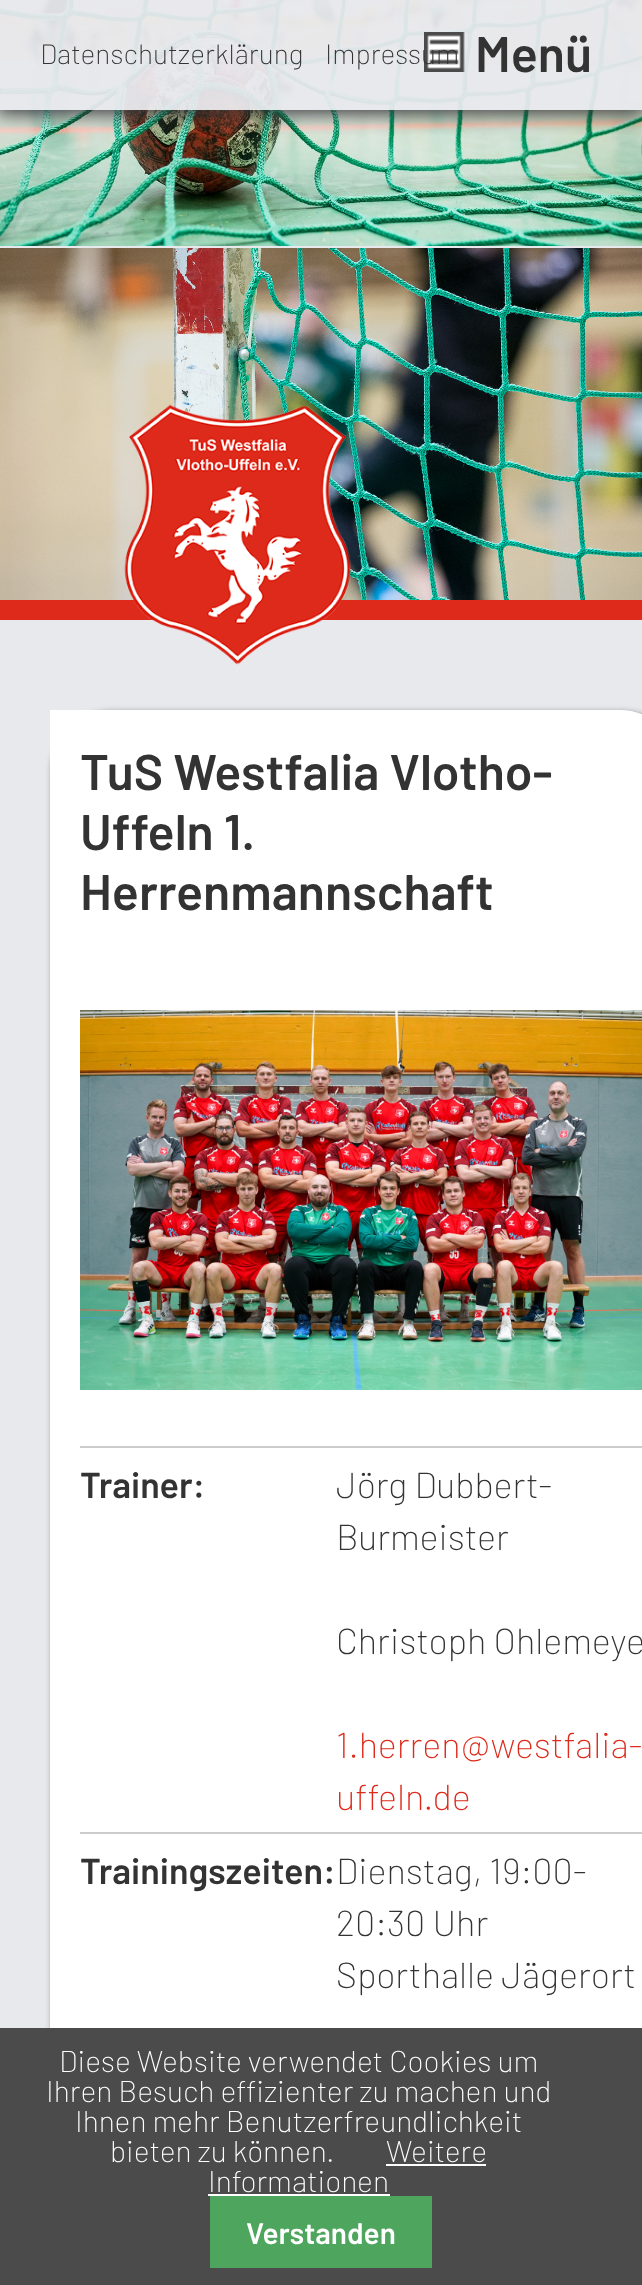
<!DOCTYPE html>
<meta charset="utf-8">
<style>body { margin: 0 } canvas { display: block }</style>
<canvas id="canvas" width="642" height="2285"></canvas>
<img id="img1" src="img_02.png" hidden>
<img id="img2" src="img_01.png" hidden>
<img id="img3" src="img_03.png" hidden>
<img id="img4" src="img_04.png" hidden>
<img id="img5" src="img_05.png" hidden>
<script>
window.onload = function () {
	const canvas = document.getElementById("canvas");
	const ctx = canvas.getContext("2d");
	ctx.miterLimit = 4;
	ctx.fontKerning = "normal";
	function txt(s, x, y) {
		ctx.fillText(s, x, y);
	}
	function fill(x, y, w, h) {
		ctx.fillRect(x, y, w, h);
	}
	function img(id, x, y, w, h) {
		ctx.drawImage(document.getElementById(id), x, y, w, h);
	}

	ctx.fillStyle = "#E8E9ED";
	fill(0, 0, 642, 2285);
	img("img1", 0, 0, 642, 246);
	ctx.save();
	ctx.beginPath();
	ctx.rect(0, 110, 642, 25);
	ctx.clip();
	ctx.fillStyle = "#333333";
	ctx.filter = "blur(10px)";
	ctx.beginPath();
	ctx.rect(-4, -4, 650, 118);
	ctx.fill();
	ctx.filter = "none";
	ctx.restore();
	ctx.fillStyle = "rgba(232, 233, 237, 0.95)";
	fill(0, 0, 642, 110);
	img("img2", 424, 32, 41, 40);
	ctx.fillStyle = "#DD2A1B";
	fill(0, 600, 642, 20);
	img("img3", 0, 248, 642, 352);
	img("img4", 124, 404, 227, 261);
	ctx.fillStyle = "#7A7A7A";
	ctx.filter = "blur(3px)";
	ctx.beginPath();
	ctx.roundRect(52, 712, 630, 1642, 60);
	ctx.fill();
	ctx.filter = "none";
	ctx.fillStyle = "#FFFFFF";
	ctx.beginPath();
	ctx.moveTo(50, 710);
	ctx.lineTo(620, 710);
	ctx.bezierCurveTo(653, 710, 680, 737, 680, 770);
	ctx.lineTo(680, 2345);
	ctx.lineTo(50, 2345);
	ctx.closePath();
	ctx.fill();
	img("img5", 80, 1010, 562, 380);
	ctx.fillStyle = "#CCCCCC";
	fill(80, 1446, 562, 2);
	fill(80, 1832, 562, 2);
	ctx.fillStyle = "#4B4B4B";
	fill(0, 2028, 642, 257);
	ctx.fillStyle = "#FFFFFF";
	fill(386, 2164, 100, 2);
	fill(208, 2194, 182, 2);
	ctx.fillStyle = "#4EA55E";
	fill(210, 2196, 222, 72);
	ctx.font = "300 28px Barlow";
	ctx.fillStyle = "#333333";
	txt("Datenschutzerklärung", 40, 64);
	txt("Impressum", 325, 64);
	ctx.font = "600 50px Barlow";
	txt("Menü", 475, 72);
	txt("TuS Westfalia Vlotho-", 80, 790);
	txt("Uffeln 1.", 80, 850);
	txt("Herrenmannschaft", 80, 910);
	ctx.font = "600 36px Barlow";
	txt("Trainer:", 80, 1498);
	ctx.font = "300 36px Barlow";
	txt("Jörg Dubbert-", 336, 1498);
	txt("Burmeister", 336, 1550);
	txt("Christoph Ohlemeye", 336, 1654);
	ctx.fillStyle = "#DD2A1B";
	txt("1.herren@westfalia-", 336, 1758);
	txt("uffeln.de", 336, 1810);
	ctx.font = "600 36px Barlow";
	ctx.fillStyle = "#333333";
	txt("Trainingszeiten:", 80, 1884);
	ctx.font = "300 36px Barlow";
	txt("Dienstag, 19:00-", 336, 1884);
	txt("20:30 Uhr", 336, 1936);
	txt("Sporthalle Jägerort", 336, 1988);
	ctx.font = "300 30px Barlow";
	ctx.fillStyle = "#FFFFFF";
	txt("Diese Website verwendet Cookies um", 59, 2072);
	txt("Ihren Besuch effizienter zu machen und", 46, 2102);
	txt("Ihnen mehr Benutzerfreundlichkeit", 75, 2132);
	txt("bieten zu können.", 110, 2162);
	txt("Weitere", 386, 2162);
	txt("Informationen", 208, 2192);
	ctx.font = "600 29.75px Barlow";
	txt("Verstanden", 246, 2244);
};
</script>
